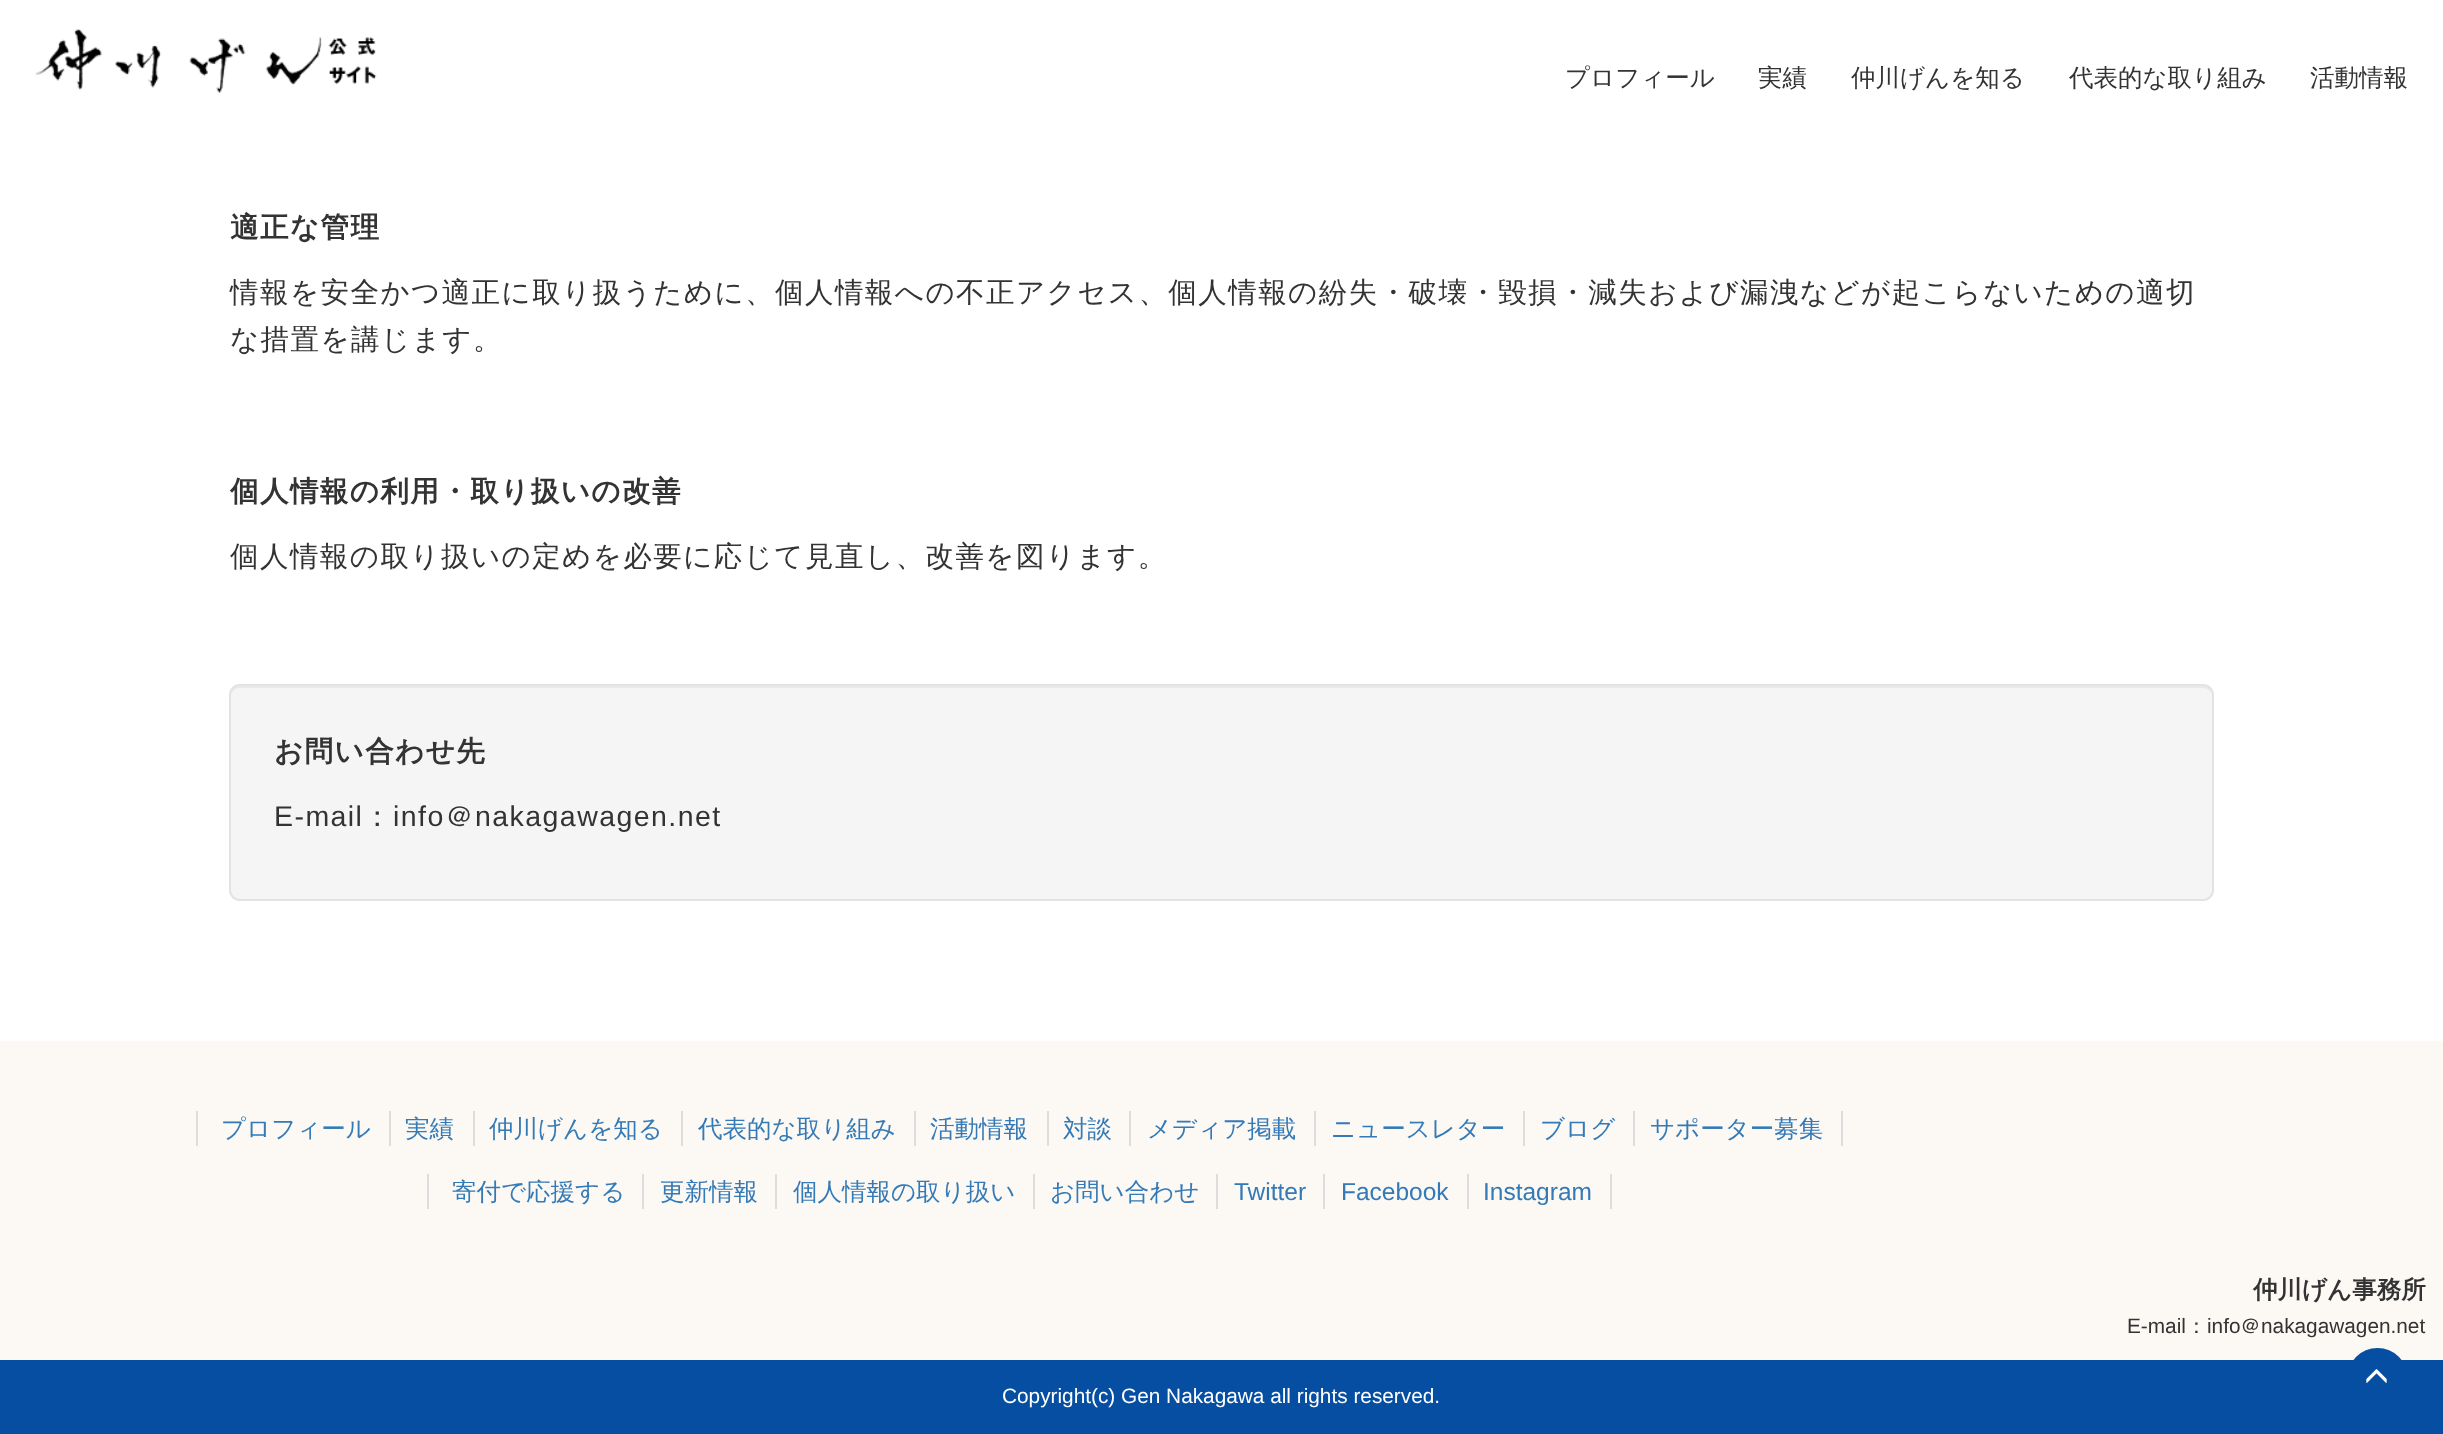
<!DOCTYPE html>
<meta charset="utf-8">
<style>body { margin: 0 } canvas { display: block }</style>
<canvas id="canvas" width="2443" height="1434"></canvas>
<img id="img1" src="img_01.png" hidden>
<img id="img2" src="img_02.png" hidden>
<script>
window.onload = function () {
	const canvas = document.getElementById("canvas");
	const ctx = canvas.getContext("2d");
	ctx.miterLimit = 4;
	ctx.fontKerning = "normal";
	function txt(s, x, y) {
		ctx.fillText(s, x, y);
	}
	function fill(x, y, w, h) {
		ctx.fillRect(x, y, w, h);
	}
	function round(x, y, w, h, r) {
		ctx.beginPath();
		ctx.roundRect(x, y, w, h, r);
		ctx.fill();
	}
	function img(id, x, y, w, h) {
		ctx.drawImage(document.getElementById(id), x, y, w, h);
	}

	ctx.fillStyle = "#FFFFFF";
	fill(0, 0, 2443, 1434);
	img("img1", 35, 29, 342, 64);
	ctx.fillStyle = "#F5F5F5";
	round(229, 684, 1985, 217, 11);
	ctx.fillStyle = "#E9E9E9";
	ctx.beginPath();
	ctx.moveTo(240, 688);
	ctx.lineTo(2203, 688);
	ctx.bezierCurveTo(2208, 688, 2212, 692, 2212, 696);
	ctx.bezierCurveTo(2212, 691, 2209, 686, 2203, 686);
	ctx.lineTo(240, 686);
	ctx.bezierCurveTo(234, 686, 231, 691, 231, 696);
	ctx.bezierCurveTo(231, 692, 235, 688, 240, 688);
	ctx.closePath();
	ctx.fill();
	ctx.beginPath();
	ctx.roundRect(230, 685, 1983, 215, 10);
	ctx.strokeStyle = "#E3E3E3";
	ctx.lineWidth = 2;
	ctx.stroke();
	ctx.fillStyle = "#FCF8F4";
	fill(0, 1041, 2443, 319);
	ctx.fillStyle = "#DDDDDD";
	fill(389, 1111, 2, 35);
	fill(196, 1111, 2, 35);
	fill(473, 1111, 2, 35);
	fill(681, 1111, 2, 35);
	fill(914, 1111, 2, 35);
	fill(1047, 1111, 2, 35);
	fill(1129, 1111, 2, 35);
	fill(1314, 1111, 2, 35);
	fill(1523, 1111, 2, 35);
	fill(1633, 1111, 2, 35);
	fill(1841, 1111, 2, 35);
	fill(642, 1174, 2, 35);
	fill(427, 1174, 2, 35);
	fill(775, 1174, 2, 35);
	fill(1033, 1174, 2, 35);
	fill(1216, 1174, 2, 35);
	fill(1323, 1174, 2, 35);
	fill(1467, 1174, 2, 35);
	fill(1610, 1174, 2, 35);
	ctx.fillStyle = "#054EA1";
	fill(0, 1360, 2443, 74);
	ctx.beginPath();
	ctx.arc(2377.5, 1378.5, 30.5, 0, Math.PI * 2);
	ctx.fill();
	img("img2", 2366, 1369, 21, 14);
	ctx.font = "500 24.5px WenQuanYi Zen Hei";
	ctx.fillStyle = "#333333";
	txt("プロフィール", 1565, 86);
	txt("実績", 1758, 86);
	txt("仲川げんを知る", 1851, 86);
	txt("代表的な取り組み", 2069, 86);
	txt("活動情報", 2310, 86);
	ctx.letterSpacing = "1.43px";
	ctx.font = "bold 28.53px WenQuanYi Zen Hei";
	txt("適正な管理", 230, 237);
	ctx.font = "500 28.53px WenQuanYi Zen Hei";
	txt("情報を安全かつ適正に取り扱うために、個人情報への不正アクセス、個人情報の紛失・破壊・毀損・減失および漏洩などが起こらないための適切", 230, 302);
	txt("な措置を講じます。", 230, 349);
	ctx.font = "bold 28.53px WenQuanYi Zen Hei";
	txt("個人情報の利用・取り扱いの改善", 230, 501);
	ctx.font = "500 28.53px WenQuanYi Zen Hei";
	txt("個人情報の取り扱いの定めを必要に応じて見直し、改善を図ります。", 230, 566);
	ctx.font = "bold 28.53px WenQuanYi Zen Hei";
	txt("お問い合わせ先", 274, 761);
	ctx.font = "28.53px Liberation Sans";
	txt("E-mail", 274, 826);
	ctx.font = "500 28.53px WenQuanYi Zen Hei";
	txt("：", 363, 826);
	ctx.font = "28.53px Liberation Sans";
	txt("info", 393, 826);
	ctx.font = "500 28.53px WenQuanYi Zen Hei";
	txt("＠", 445, 826);
	ctx.font = "28.53px Liberation Sans";
	txt("nakagawagen.net", 475, 826);
	ctx.letterSpacing = "0px";
	ctx.font = "500 24.5px WenQuanYi Zen Hei";
	ctx.fillStyle = "#337AB7";
	txt("プロフィール", 221, 1137);
	txt("実績", 405, 1137);
	txt("仲川げんを知る", 489, 1137);
	txt("代表的な取り組み", 698, 1137);
	txt("活動情報", 930, 1137);
	txt("対談", 1063, 1137);
	txt("メディア掲載", 1147, 1137);
	txt("ニュースレター", 1331, 1137);
	txt("ブログ", 1540, 1137);
	txt("サポーター募集", 1650, 1137);
	txt("寄付で応援する", 452, 1200);
	txt("更新情報", 660, 1200);
	txt("個人情報の取り扱い", 793, 1200);
	txt("お問い合わせ", 1050, 1200);
	ctx.font = "24.5px Liberation Sans";
	txt("Twitter", 1234, 1200);
	txt("Facebook", 1341, 1200);
	txt("Instagram", 1483, 1200);
	ctx.font = "bold 24.5px WenQuanYi Zen Hei";
	ctx.fillStyle = "#333333";
	txt("仲川げん事務所", 2253, 1298);
	ctx.font = "20.8px Liberation Sans";
	txt("E-mail", 2127, 1333);
	ctx.font = "500 20.8px WenQuanYi Zen Hei";
	txt("：", 2186, 1333);
	ctx.font = "20.8px Liberation Sans";
	txt("info", 2207, 1333);
	ctx.font = "500 20.8px WenQuanYi Zen Hei";
	txt("＠", 2240, 1333);
	ctx.font = "20.8px Liberation Sans";
	txt("nakagawagen.net", 2261, 1333);
	ctx.fillStyle = "#FFFFFF";
	txt("Copyright(c) Gen Nakagawa all rights reserved.", 1002, 1403);
};
</script>
